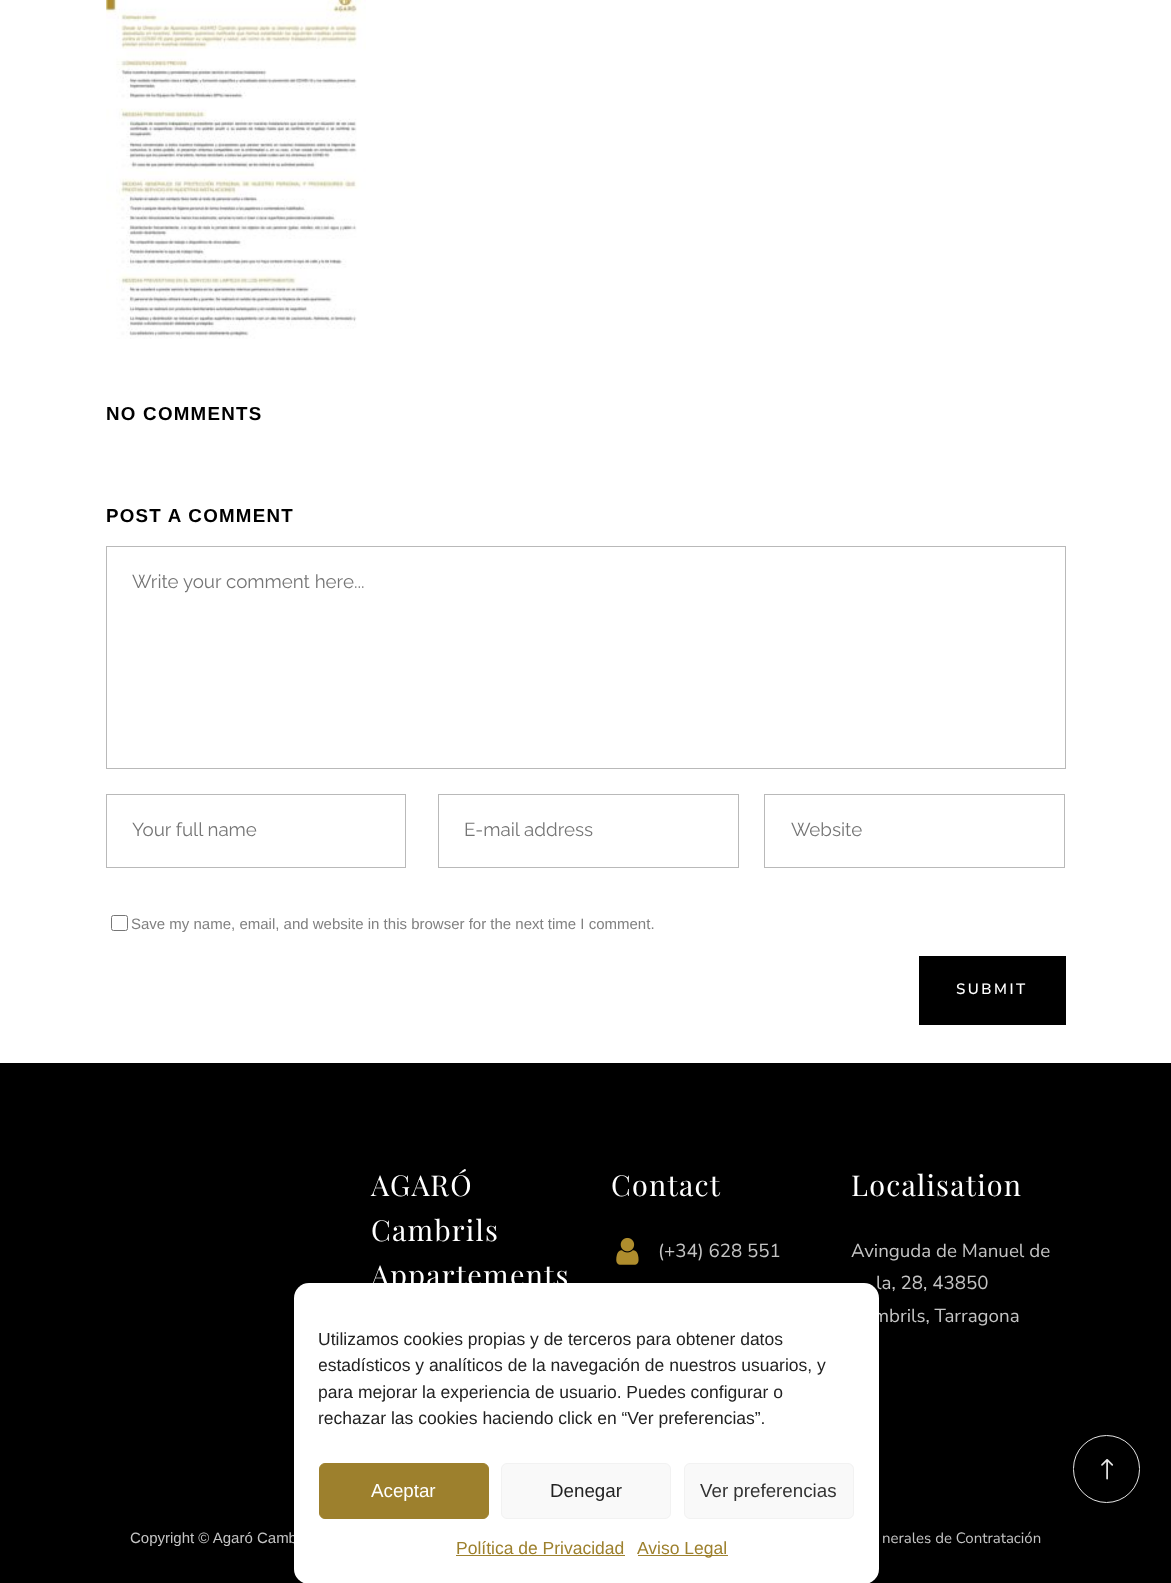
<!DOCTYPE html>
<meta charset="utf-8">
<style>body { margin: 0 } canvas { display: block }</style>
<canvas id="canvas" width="1171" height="1583"></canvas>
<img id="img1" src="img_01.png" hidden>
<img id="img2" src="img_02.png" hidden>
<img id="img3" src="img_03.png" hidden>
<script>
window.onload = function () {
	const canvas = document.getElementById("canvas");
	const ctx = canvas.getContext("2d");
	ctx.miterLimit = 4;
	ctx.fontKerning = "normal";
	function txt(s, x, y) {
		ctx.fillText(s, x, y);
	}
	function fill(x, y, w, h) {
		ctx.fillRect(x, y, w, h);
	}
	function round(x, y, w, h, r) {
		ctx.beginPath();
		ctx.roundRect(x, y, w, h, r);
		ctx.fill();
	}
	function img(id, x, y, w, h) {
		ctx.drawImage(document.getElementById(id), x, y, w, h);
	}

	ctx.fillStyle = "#FFFFFF";
	fill(0, 0, 1171, 1583);
	img("img1", 106, 0, 260, 339);
	ctx.strokeStyle = "#B9B9B9";
	ctx.strokeRect(106.5, 546.5, 959, 222);
	ctx.strokeRect(106.5, 794.5, 299, 73);
	ctx.strokeRect(438.5, 794.5, 300, 73);
	ctx.strokeRect(764.5, 794.5, 300, 73);
	ctx.beginPath();
	ctx.roundRect(111.5, 915.5, 16, 15, 2);
	ctx.strokeStyle = "#767676";
	ctx.stroke();
	ctx.fillStyle = "#000000";
	fill(919, 956, 147, 69);
	fill(0, 1063, 1171, 520);
	img("img2", 616, 1237, 23, 28);
	ctx.beginPath();
	ctx.roundRect(1073.5, 1435.5, 66, 67, 33);
	ctx.strokeStyle = "#E5E5E5";
	ctx.stroke();
	img("img3", 1101, 1459, 13, 21);
	ctx.fillStyle = "rgba(0, 0, 0, 0.23)";
	ctx.filter = "blur(4px)";
	ctx.beginPath();
	ctx.roundRect(294, 1290, 585, 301, 15);
	ctx.fill();
	ctx.filter = "none";
	ctx.fillStyle = "rgba(0, 0, 0, 0.19)";
	ctx.filter = "blur(12.5px)";
	ctx.beginPath();
	ctx.roundRect(294, 1295, 585, 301, 15);
	ctx.fill();
	ctx.filter = "none";
	ctx.letterSpacing = "1.25px";
	ctx.font = "bold 18.75px Liberation Sans";
	ctx.fillStyle = "#000000";
	txt("NO COMMENTS", 106, 420);
	txt("POST A COMMENT", 106, 522);
	ctx.letterSpacing = "0px";
	ctx.font = "18.75px Raleway";
	ctx.fillStyle = "#757575";
	txt("Write your comment here...", 132, 588);
	txt("Your full name", 132, 836);
	txt("E-mail address", 464, 836);
	txt("Website", 791, 836);
	ctx.font = "15px Liberation Sans";
	ctx.fillStyle = "#818181";
	txt("Save my name, email, and website in this browser for the next time I comment.", 131, 929);
	ctx.letterSpacing = "2.5px";
	ctx.font = "600 15px Nunito Sans";
	ctx.fillStyle = "#FFFFFF";
	txt("SUBMIT", 956, 994);
	ctx.letterSpacing = "1.25px";
	ctx.font = "28.75px Playfair Display";
	txt("AGARÓ", 371, 1196);
	txt("Cambrils", 371, 1241);
	txt("Appartements", 371, 1286);
	txt("Contact", 611, 1196);
	ctx.letterSpacing = "0px";
	ctx.font = "18.75px Nunito Sans";
	ctx.fillStyle = "#C4C4C4";
	txt("(+34) 628 551", 658, 1257);
	ctx.letterSpacing = "1.25px";
	ctx.font = "28.75px Playfair Display";
	ctx.fillStyle = "#FFFFFF";
	txt("Localisation", 851, 1196);
	ctx.letterSpacing = "0px";
	ctx.font = "18.75px Nunito Sans";
	ctx.fillStyle = "#C4C4C4";
	txt("Avinguda de Manuel de", 851, 1257);
	txt("la, 28, 43850", 876, 1289);
	txt("mbrils, Tarragona", 873, 1322);
	ctx.font = "15px Liberation Sans";
	txt("Copyright © Agaró Camb", 130, 1543);
	ctx.font = "15px Nunito Sans";
	txt("nerales de Contratación", 882, 1543);
	ctx.fillStyle = "#FFFFFF";
	round(294, 1283, 585, 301, 15);
	ctx.font = "17.5px Liberation Sans";
	ctx.fillStyle = "#222222";
	txt("Utilizamos cookies propias y de terceros para obtener datos", 318, 1345);
	ctx.save();
	ctx.beginPath();
	ctx.rect(319, 1326, 535, 112);
	ctx.clip();
	txt("estadísticos y analíticos de la navegación de nuestros usuarios, y", 318, 1371);
	ctx.restore();
	txt("para mejorar la experiencia de usuario. Puedes configurar o", 318, 1398);
	txt("rechazar las cookies haciendo click en “Ver preferencias”.", 318, 1424);
	ctx.fillStyle = "#9D802D";
	ctx.beginPath();
	ctx.roundRect(319.5, 1463.5, 169, 55, 5.5);
	ctx.fill();
	ctx.strokeStyle = "#9D802D";
	ctx.stroke();
	ctx.font = "18.75px Liberation Sans";
	ctx.fillStyle = "#FFFFFF";
	txt("Aceptar", 371, 1497);
	ctx.fillStyle = "#F9F9F9";
	ctx.beginPath();
	ctx.roundRect(501.5, 1463.5, 169, 55, 5.5);
	ctx.fill();
	ctx.strokeStyle = "#F2F2F2";
	ctx.stroke();
	ctx.fillStyle = "#222222";
	txt("Denegar", 550, 1497);
	ctx.fillStyle = "#F9F9F9";
	ctx.beginPath();
	ctx.roundRect(684.5, 1463.5, 169, 55, 5.5);
	ctx.fill();
	ctx.stroke();
	ctx.fillStyle = "#333333";
	txt("Ver preferencias", 700, 1497);
	ctx.font = "17.5px Liberation Sans";
	ctx.fillStyle = "#9D802D";
	txt("Política de Privacidad", 456, 1554);
	fill(456, 1555, 169, 1);
	fill(638, 1555, 90, 1);
	txt("Aviso Legal", 637, 1554);
};
</script>
